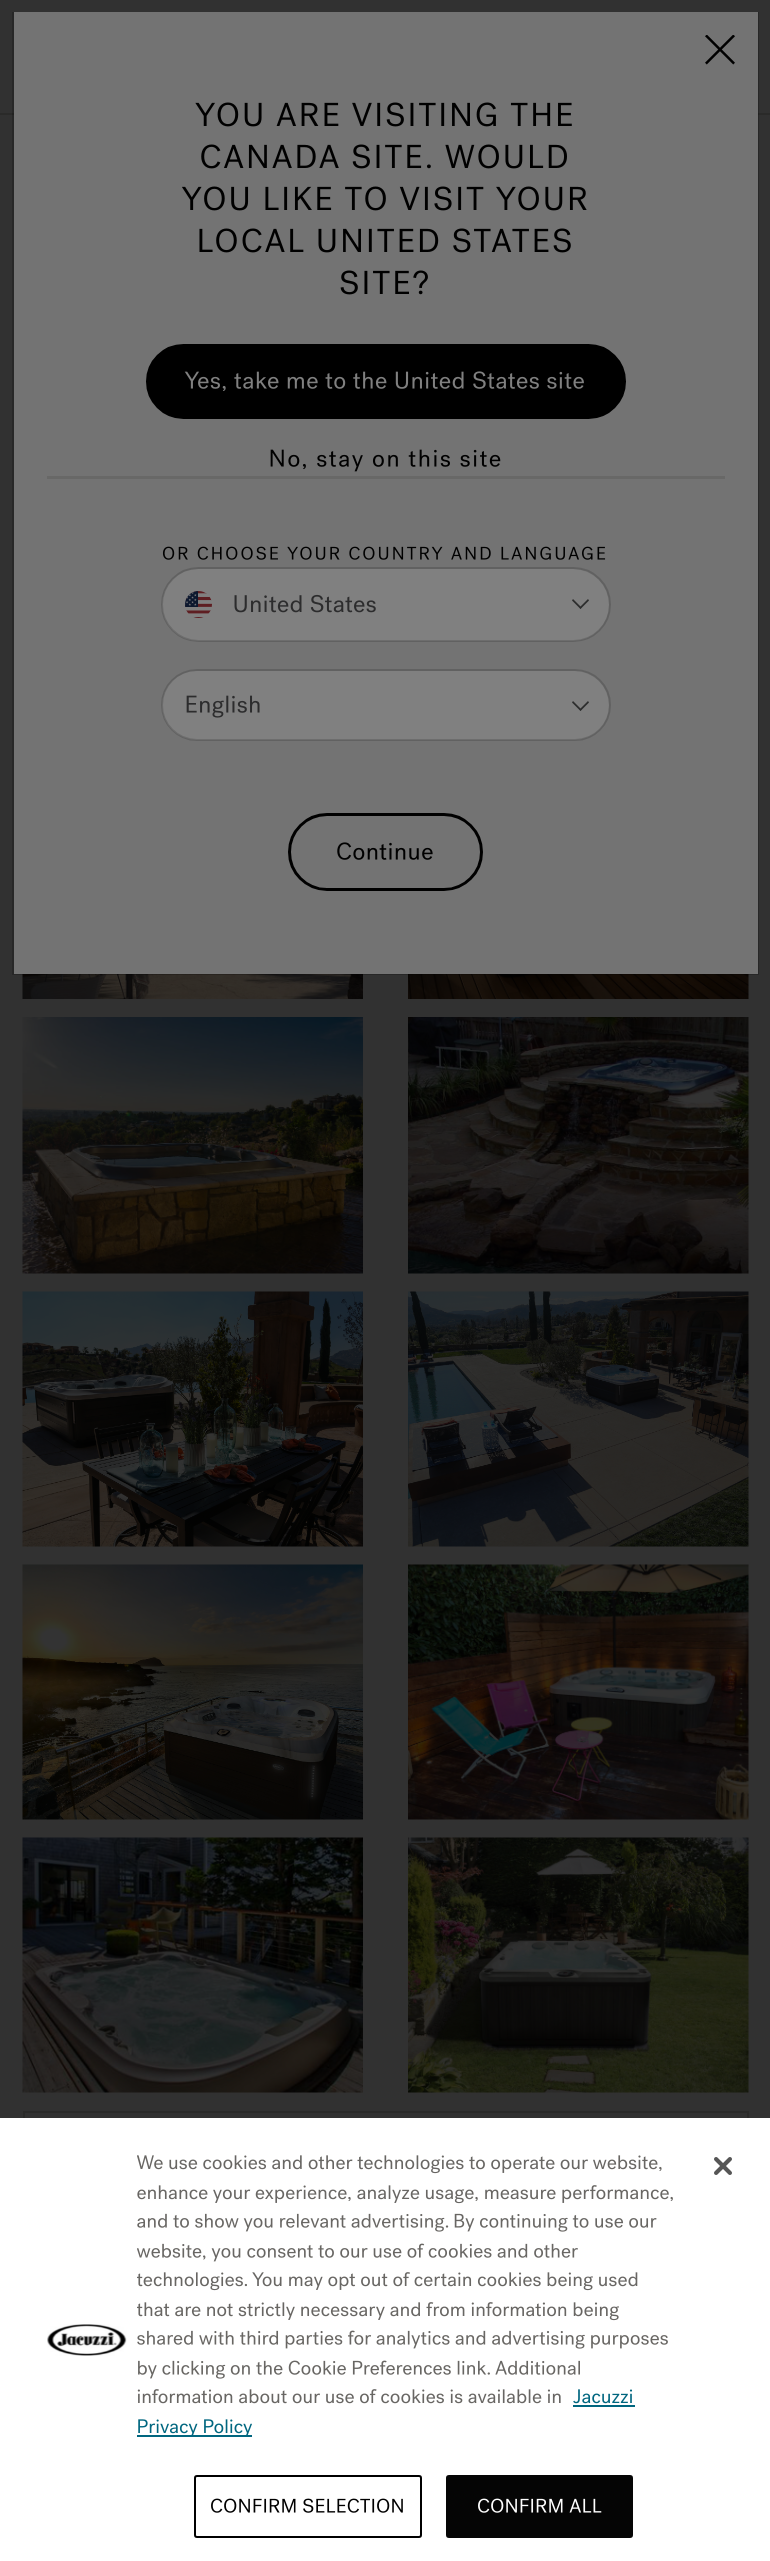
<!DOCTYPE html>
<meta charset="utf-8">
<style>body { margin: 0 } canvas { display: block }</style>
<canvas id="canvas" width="770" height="2561"></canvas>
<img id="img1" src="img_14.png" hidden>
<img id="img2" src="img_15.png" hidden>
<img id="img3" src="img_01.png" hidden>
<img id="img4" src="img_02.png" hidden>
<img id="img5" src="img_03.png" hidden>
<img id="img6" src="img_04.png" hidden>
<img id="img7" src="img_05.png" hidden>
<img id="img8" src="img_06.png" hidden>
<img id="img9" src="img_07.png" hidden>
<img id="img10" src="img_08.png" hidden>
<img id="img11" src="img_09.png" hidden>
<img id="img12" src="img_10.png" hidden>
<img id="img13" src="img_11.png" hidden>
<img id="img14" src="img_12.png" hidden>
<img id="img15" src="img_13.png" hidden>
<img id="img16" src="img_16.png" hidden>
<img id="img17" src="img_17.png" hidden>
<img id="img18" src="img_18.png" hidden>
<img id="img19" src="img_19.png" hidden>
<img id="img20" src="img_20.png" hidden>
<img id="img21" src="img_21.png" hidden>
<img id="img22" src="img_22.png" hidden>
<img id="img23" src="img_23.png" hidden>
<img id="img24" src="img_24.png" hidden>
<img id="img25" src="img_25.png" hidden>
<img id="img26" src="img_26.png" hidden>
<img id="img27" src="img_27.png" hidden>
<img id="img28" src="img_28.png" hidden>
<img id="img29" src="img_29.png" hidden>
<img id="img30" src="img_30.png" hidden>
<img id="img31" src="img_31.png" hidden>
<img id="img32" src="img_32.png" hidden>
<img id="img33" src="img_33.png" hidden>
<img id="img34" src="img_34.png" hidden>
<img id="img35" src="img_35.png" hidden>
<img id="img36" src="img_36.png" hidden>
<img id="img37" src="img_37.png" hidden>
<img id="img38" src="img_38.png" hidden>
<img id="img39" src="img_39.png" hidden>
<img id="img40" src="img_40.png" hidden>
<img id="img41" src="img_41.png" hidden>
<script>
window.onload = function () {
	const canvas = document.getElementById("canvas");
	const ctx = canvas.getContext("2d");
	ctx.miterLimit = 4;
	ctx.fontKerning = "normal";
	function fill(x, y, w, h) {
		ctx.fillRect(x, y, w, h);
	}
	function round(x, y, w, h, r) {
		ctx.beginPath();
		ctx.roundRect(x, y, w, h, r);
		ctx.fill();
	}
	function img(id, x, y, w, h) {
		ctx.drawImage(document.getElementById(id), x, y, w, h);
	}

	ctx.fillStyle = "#313131";
	fill(0, 0, 770, 2561);
	ctx.fillStyle = "#2A2A29";
	fill(0, 113, 770, 2);
	ctx.fillStyle = "#737373";
	fill(14, 12, 744, 962);
	ctx.fillStyle = "rgba(0, 0, 0, 0.2)";
	ctx.beginPath();
	ctx.moveTo(759, 12);
	ctx.lineTo(759, 975);
	ctx.lineTo(758, 974);
	ctx.lineTo(758, 12);
	ctx.closePath();
	ctx.fill();
	img("img1", 22, 974, 341, 25);
	img("img2", 408, 974, 341, 25);
	ctx.beginPath();
	ctx.moveTo(759, 975);
	ctx.lineTo(12, 975);
	ctx.lineTo(14, 974);
	ctx.lineTo(758, 974);
	ctx.closePath();
	ctx.fill();
	ctx.beginPath();
	ctx.moveTo(12, 975);
	ctx.lineTo(12, 12);
	ctx.lineTo(14, 12);
	ctx.lineTo(14, 974);
	ctx.closePath();
	ctx.fill();
	img("img3", 705, 35, 30, 30);
	img("img4", 195, 102, 377, 25);
	img("img5", 201, 144, 366, 25);
	img("img6", 182, 186, 405, 25);
	img("img7", 199, 228, 372, 25);
	img("img8", 340, 270, 88, 25);
	ctx.fillStyle = "#000000";
	ctx.beginPath();
	ctx.roundRect(147, 345, 478, 73, 36.5);
	ctx.fill();
	ctx.strokeStyle = "#000000";
	ctx.lineWidth = 2;
	ctx.stroke();
	img("img9", 184, 371, 400, 20);
	img("img10", 270, 449, 231, 23);
	ctx.fillStyle = "#686867";
	fill(47, 476, 678, 3);
	img("img11", 162, 546, 444, 14);
	ctx.fillStyle = "#808080";
	round(162, 569, 447, 72, 36);
	ctx.beginPath();
	ctx.roundRect(162, 568, 448, 73, 36.5);
	ctx.strokeStyle = "rgba(0, 0, 0, 0.15)";
	ctx.stroke();
	img("img12", 185, 591, 27, 27);
	img("img13", 234, 594, 142, 19);
	ctx.fillStyle = "#2C2D2D";
	ctx.beginPath();
	ctx.moveTo(588, 599);
	ctx.lineTo(589, 600.5);
	ctx.lineTo(580.5, 609);
	ctx.lineTo(579.5, 607.5);
	ctx.closePath();
	ctx.fill();
	ctx.beginPath();
	ctx.moveTo(573, 599);
	ctx.lineTo(581.5, 607.5);
	ctx.lineTo(580.5, 609);
	ctx.lineTo(572, 600.5);
	ctx.closePath();
	ctx.fill();
	ctx.fillStyle = "#808080";
	round(162, 671, 447, 69, 34.5);
	ctx.beginPath();
	ctx.roundRect(162, 670, 448, 70, 35);
	ctx.stroke();
	img("img14", 186, 695, 74, 23);
	ctx.fillStyle = "#2C2D2D";
	ctx.beginPath();
	ctx.moveTo(588, 701);
	ctx.lineTo(589, 702.5);
	ctx.lineTo(580.5, 711);
	ctx.lineTo(579.5, 709.5);
	ctx.closePath();
	ctx.fill();
	ctx.beginPath();
	ctx.moveTo(573, 701);
	ctx.lineTo(581.5, 709.5);
	ctx.lineTo(580.5, 711);
	ctx.lineTo(572, 702.5);
	ctx.closePath();
	ctx.fill();
	ctx.beginPath();
	ctx.roundRect(289.5, 814.5, 192, 75, 37.5);
	ctx.strokeStyle = "#000000";
	ctx.lineWidth = 3;
	ctx.stroke();
	img("img15", 337, 842, 96, 18);
	img("img16", 22, 1017, 341, 257);
	img("img17", 408, 1017, 341, 257);
	img("img18", 22, 1291, 341, 256);
	img("img19", 408, 1291, 341, 256);
	img("img20", 22, 1564, 341, 256);
	img("img21", 408, 1564, 341, 256);
	img("img22", 22, 1837, 341, 256);
	img("img23", 408, 1837, 341, 256);
	ctx.strokeStyle = "#2A2A29";
	ctx.lineWidth = 2;
	ctx.strokeRect(24, 2112, 724, 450);
	ctx.fillStyle = "#FFFFFF";
	fill(0, 2118, 770, 443);
	img("img24", 47, 2324, 80, 32);
	img("img25", 137, 2155, 525, 19);
	img("img26", 137, 2185, 536, 19);
	img("img27", 137, 2213, 312, 19);
	img("img28", 454, 2213, 203, 19);
	img("img29", 137, 2243, 441, 19);
	img("img30", 137, 2272, 110, 19);
	img("img31", 252, 2272, 386, 19);
	img("img32", 137, 2302, 482, 19);
	img("img33", 137, 2330, 531, 19);
	img("img34", 138, 2360, 352, 19);
	img("img35", 495, 2360, 85, 15);
	img("img36", 137, 2389, 424, 15);
	img("img37", 573, 2389, 60, 15);
	ctx.fillStyle = "#00667F";
	fill(573, 2405, 62, 2);
	img("img38", 138, 2419, 114, 16);
	fill(137, 2435, 115, 2);
	ctx.beginPath();
	ctx.roundRect(195, 2476, 226, 61, 2);
	ctx.strokeStyle = "#000000";
	ctx.stroke();
	img("img39", 211, 2498, 192, 15);
	ctx.fillStyle = "#050505";
	ctx.beginPath();
	ctx.roundRect(447, 2476, 185, 61, 2);
	ctx.fill();
	ctx.strokeStyle = "#050505";
	ctx.stroke();
	img("img40", 478, 2498, 124, 15);
	img("img41", 714, 2157, 18, 18);
};
</script>
